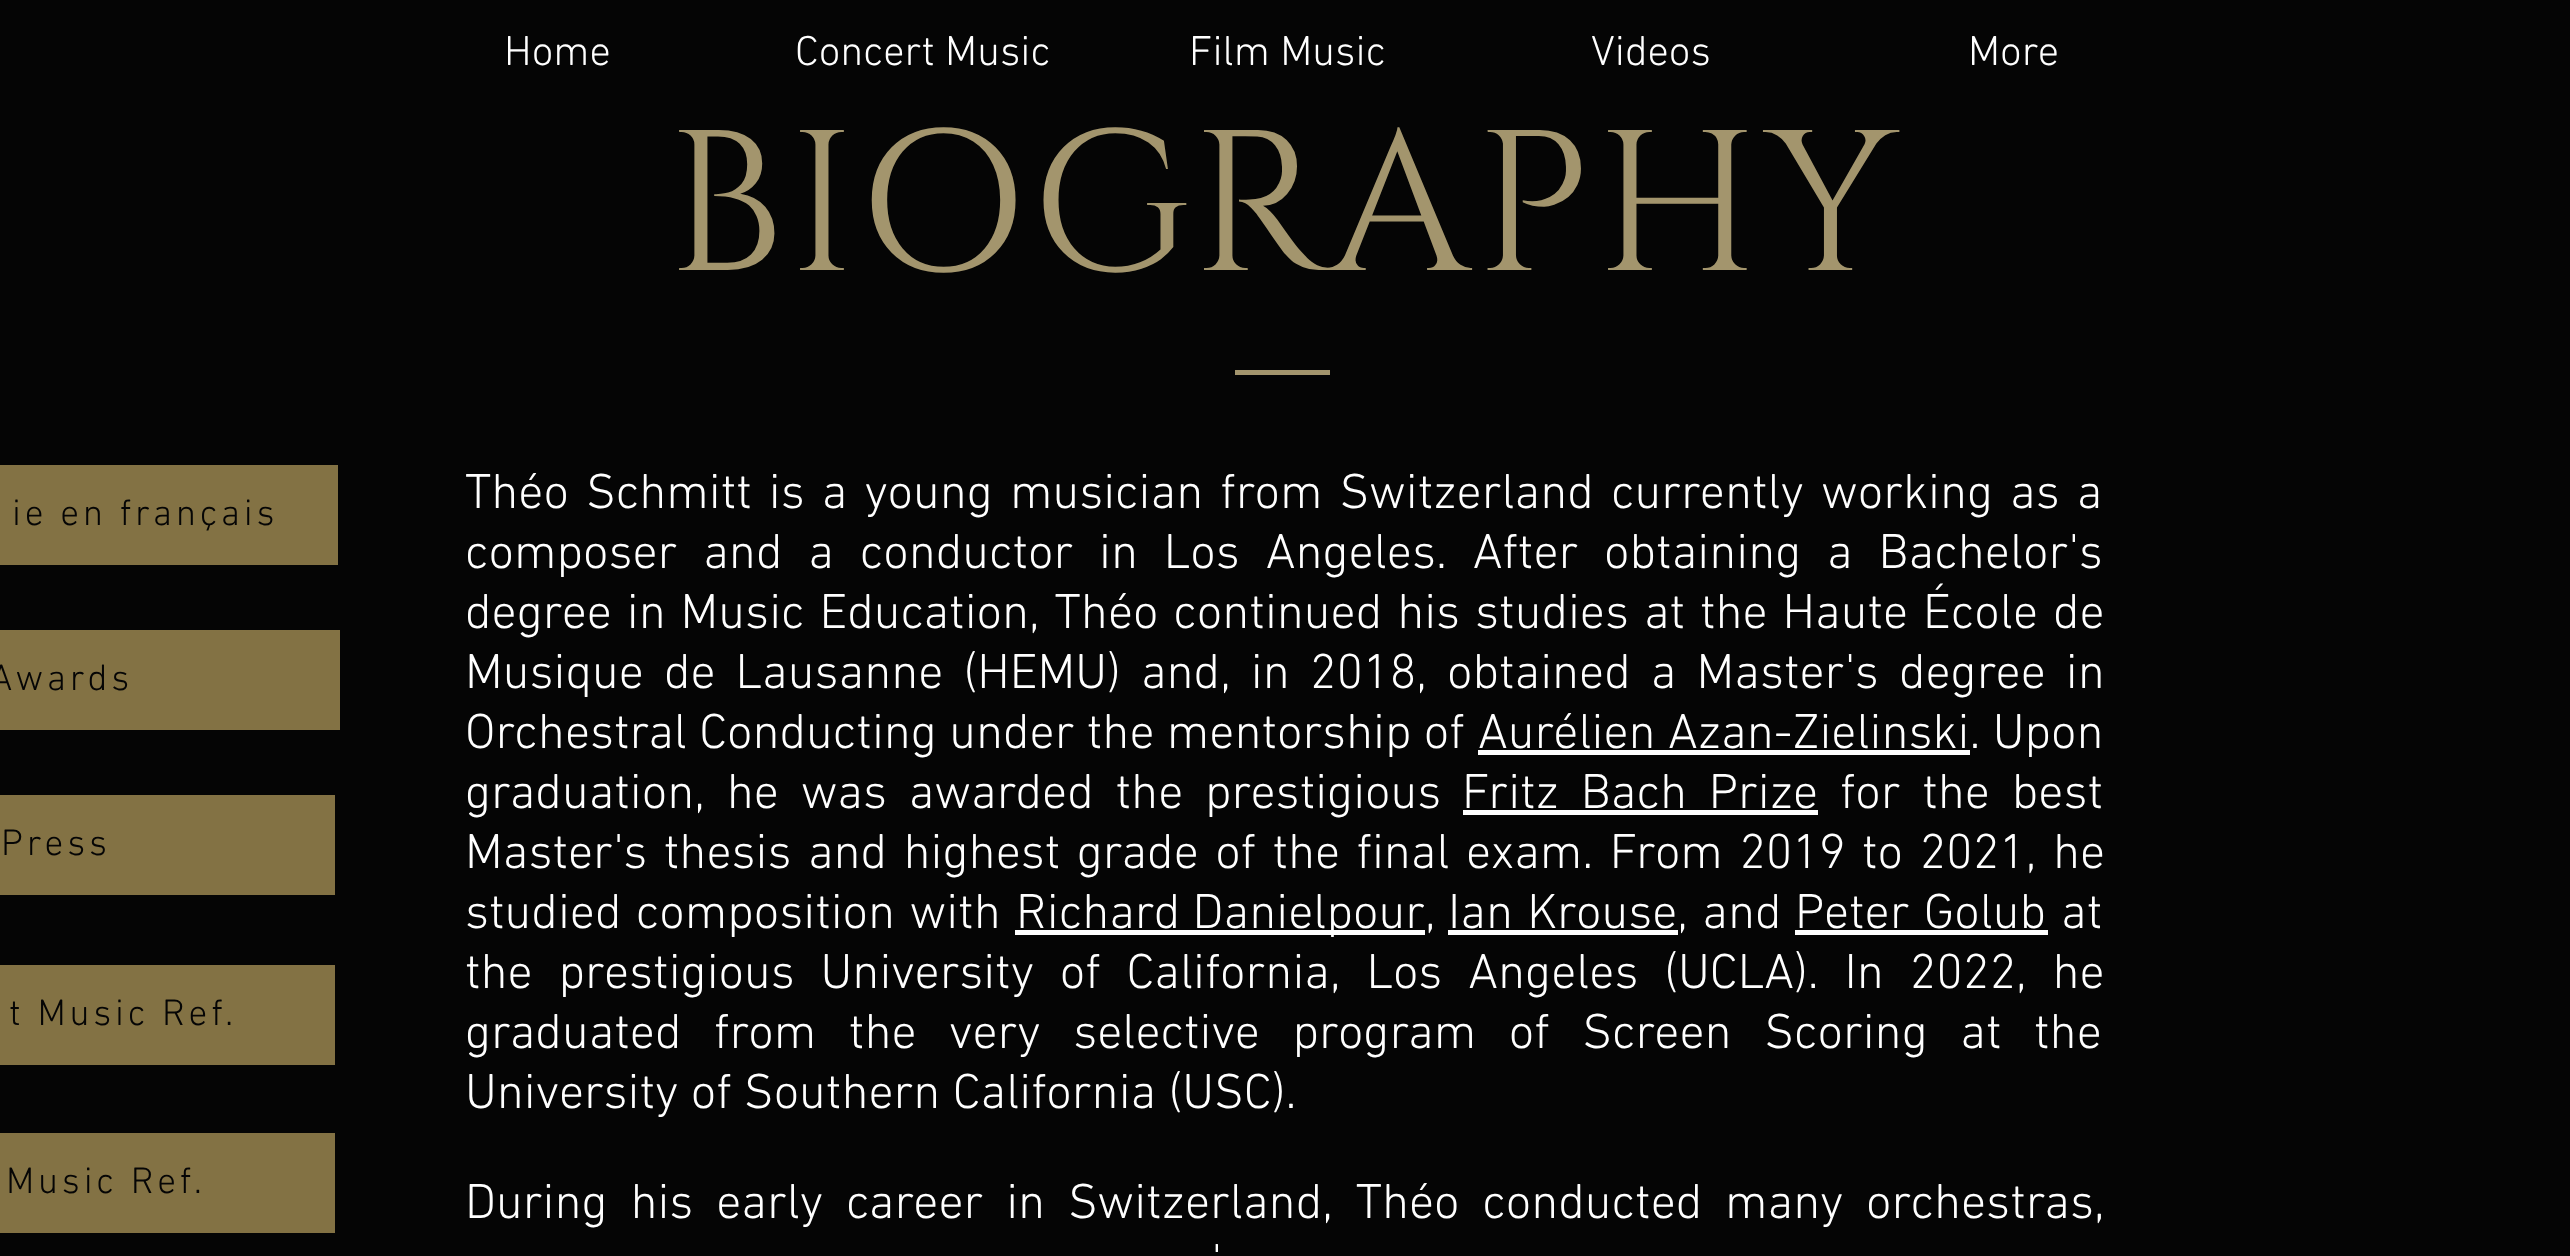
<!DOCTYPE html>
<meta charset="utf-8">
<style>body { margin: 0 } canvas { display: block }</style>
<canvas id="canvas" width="2570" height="1256"></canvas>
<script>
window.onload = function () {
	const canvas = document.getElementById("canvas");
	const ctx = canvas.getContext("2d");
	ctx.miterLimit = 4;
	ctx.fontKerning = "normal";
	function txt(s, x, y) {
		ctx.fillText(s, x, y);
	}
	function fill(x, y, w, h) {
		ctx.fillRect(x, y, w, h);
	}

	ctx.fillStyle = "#050505";
	fill(0, 0, 2570, 1256);
	ctx.fillStyle = "#A3956D";
	fill(1235, 370, 95, 5);
	ctx.fillStyle = "#837244";
	fill(0, 465, 338, 100);
	fill(0, 630, 340, 100);
	fill(0, 795, 335, 100);
	fill(0, 965, 335, 100);
	fill(0, 1133, 335, 100);
	ctx.fillStyle = "#FFFFFF";
	fill(1478, 750, 492, 5);
	fill(1463, 810, 355, 5);
	fill(1015, 930, 410, 5);
	fill(1448, 930, 230, 5);
	fill(1795, 930, 253, 5);
	ctx.font = "300 42.5px 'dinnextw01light'";
	txt("Home", 504, 65);
	txt("Concert Music", 795, 65);
	txt("Film Music", 1189, 65);
	txt("Videos", 1591, 65);
	txt("More", 1968, 65);
	ctx.letterSpacing = "6px";
	ctx.font = "200px Cinzel";
	ctx.fillStyle = "#A3956D";
	txt("BIOGRAPHY", 667, 270);
	ctx.letterSpacing = "3.75px";
	ctx.font = "300 37.5px 'dinnextw01light'";
	ctx.fillStyle = "#050505";
	txt("ie en français", 12, 525);
	txt("Awards", -10, 690);
	txt("Press", 1, 855);
	txt("t Music Ref.", 9, 1025);
	txt("Music Ref.", 6, 1193);
	ctx.letterSpacing = "0px";
	ctx.wordSpacing = "4.75px";
	ctx.font = "300 50px 'dinnextw01light'";
	ctx.fillStyle = "#FFFFFF";
	txt("Théo Schmitt is a young musician from Switzerland currently working as a", 465, 508);
	ctx.wordSpacing = "13.5px";
	txt("composer and a conductor in Los Angeles. After obtaining a Bachelor's", 465, 568);
	ctx.wordSpacing = "2.6px";
	txt("degree in Music Education, Théo continued his studies at the Haute École de", 465, 628);
	ctx.wordSpacing = "7.75px";
	txt("Musique de Lausanne (HEMU) and, in 2018, obtained a Master's degree in", 465, 688);
	ctx.wordSpacing = "0px";
	txt("Orchestral Conducting under the mentorship of", 465, 748);
	txt("Aurélien Azan-Zielinski. Upon", 1478, 748);
	ctx.wordSpacing = "9.5px";
	txt("graduation, he was awarded the prestigious", 465, 808);
	txt("Fritz Bach Prize", 1462, 808);
	txt("for the best", 1840, 808);
	ctx.wordSpacing = "4.1px";
	txt("Master's thesis and highest grade of the final exam. From 2019 to 2021, he", 465, 868);
	ctx.wordSpacing = "2px";
	txt("studied composition with", 465, 928);
	ctx.wordSpacing = "0px";
	txt("Richard Danielpour", 1016, 928);
	txt(",", 1425, 928);
	ctx.wordSpacing = "2px";
	txt("Ian Krouse, and", 1448, 928);
	txt("Peter Golub", 1795, 928);
	ctx.wordSpacing = "0px";
	txt("at", 2061, 928);
	ctx.wordSpacing = "13.5px";
	txt("the prestigious University of California, Los Angeles (UCLA). In 2022, he", 465, 988);
	ctx.wordSpacing = "20.25px";
	txt("graduated from the very selective program of Screen Scoring at the", 465, 1048);
	ctx.wordSpacing = "0px";
	txt("University of Southern California (USC).", 465, 1108);
	ctx.wordSpacing = "10.5px";
	txt("During his early career in Switzerland, Théo conducted many orchestras,", 465, 1218);
	ctx.wordSpacing = "0px";
	txt("'", 1212, 1278);
};
</script>
